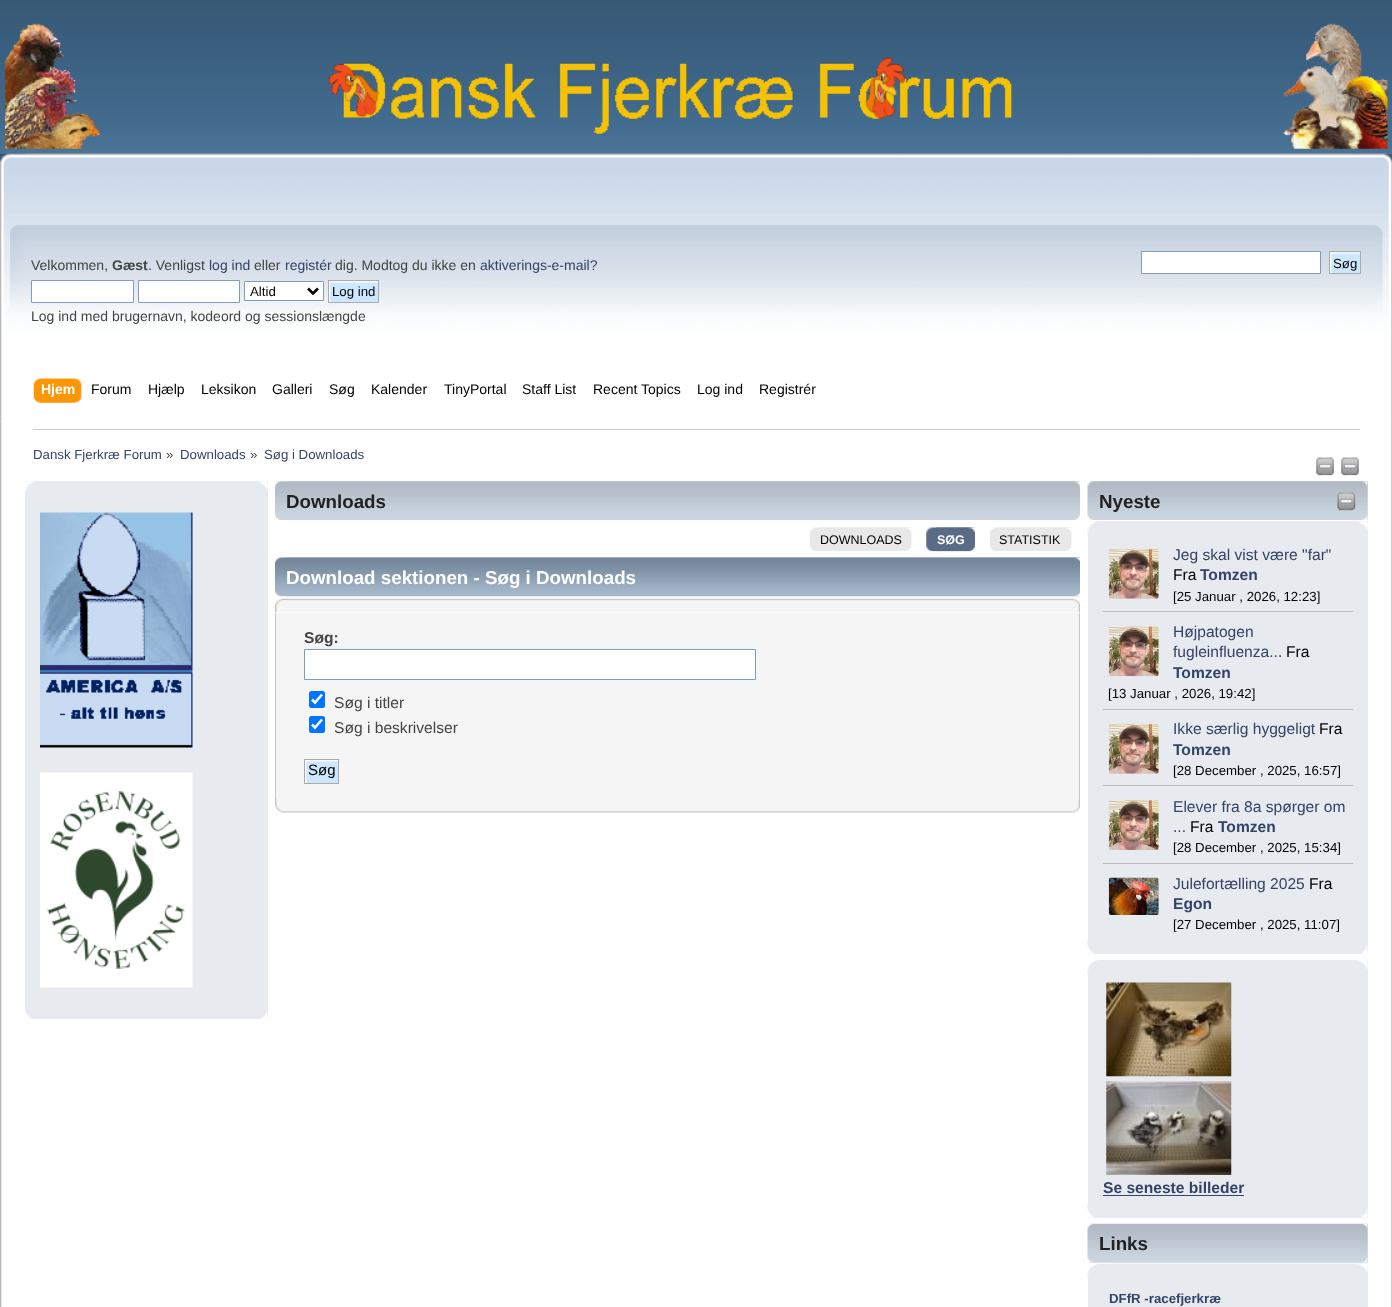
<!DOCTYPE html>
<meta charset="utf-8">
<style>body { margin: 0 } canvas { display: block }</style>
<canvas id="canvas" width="1392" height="1307"></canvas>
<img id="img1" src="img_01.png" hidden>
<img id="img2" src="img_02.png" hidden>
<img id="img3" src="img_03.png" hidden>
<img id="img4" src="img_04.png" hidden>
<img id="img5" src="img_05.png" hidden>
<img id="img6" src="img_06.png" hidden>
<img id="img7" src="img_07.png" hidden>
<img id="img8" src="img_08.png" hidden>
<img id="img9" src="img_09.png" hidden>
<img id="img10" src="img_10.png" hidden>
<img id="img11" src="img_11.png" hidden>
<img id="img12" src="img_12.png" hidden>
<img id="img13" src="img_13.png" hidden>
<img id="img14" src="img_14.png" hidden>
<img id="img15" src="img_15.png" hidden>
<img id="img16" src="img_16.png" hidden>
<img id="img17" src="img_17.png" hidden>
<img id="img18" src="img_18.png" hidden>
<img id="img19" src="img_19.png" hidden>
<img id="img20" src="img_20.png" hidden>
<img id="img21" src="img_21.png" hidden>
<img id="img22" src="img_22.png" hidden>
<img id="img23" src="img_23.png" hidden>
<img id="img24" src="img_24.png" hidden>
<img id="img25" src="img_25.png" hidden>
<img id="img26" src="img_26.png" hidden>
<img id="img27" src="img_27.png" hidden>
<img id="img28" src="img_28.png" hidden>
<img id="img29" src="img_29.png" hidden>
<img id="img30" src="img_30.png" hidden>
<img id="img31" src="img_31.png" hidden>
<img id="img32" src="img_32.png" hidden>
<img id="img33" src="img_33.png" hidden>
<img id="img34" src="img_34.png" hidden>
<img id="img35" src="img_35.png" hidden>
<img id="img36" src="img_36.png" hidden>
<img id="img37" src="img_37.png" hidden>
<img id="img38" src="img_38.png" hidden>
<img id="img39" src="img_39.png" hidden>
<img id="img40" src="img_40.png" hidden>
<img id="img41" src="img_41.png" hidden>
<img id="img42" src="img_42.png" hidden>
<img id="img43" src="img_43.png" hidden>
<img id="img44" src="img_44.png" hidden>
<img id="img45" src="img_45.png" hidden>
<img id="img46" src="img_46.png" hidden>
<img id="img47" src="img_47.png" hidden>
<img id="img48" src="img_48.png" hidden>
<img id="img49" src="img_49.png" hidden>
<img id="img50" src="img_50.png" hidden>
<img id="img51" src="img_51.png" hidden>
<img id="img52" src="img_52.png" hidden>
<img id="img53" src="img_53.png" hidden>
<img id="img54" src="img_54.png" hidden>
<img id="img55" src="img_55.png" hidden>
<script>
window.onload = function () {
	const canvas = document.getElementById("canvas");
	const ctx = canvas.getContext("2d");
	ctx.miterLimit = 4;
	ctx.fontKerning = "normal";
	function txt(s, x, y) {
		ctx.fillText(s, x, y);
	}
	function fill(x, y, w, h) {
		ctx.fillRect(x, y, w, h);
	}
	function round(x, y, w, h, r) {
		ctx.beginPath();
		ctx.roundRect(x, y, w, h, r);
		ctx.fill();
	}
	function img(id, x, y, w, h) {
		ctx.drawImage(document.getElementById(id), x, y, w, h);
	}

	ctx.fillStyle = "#FFFFFF";
	fill(0, 0, 1392, 1307);
	img("img1", 0, 0, 1392, 154);
	img("img2", 5, 23, 96, 126);
	img("img3", 328, 57, 684, 77);
	img("img4", 1283, 23, 105, 126);
	img("img5", 0, 153, 1392, 268);
	img("img6", 25, 153, 1367, 268);
	ctx.beginPath();
	ctx.rect(31.5, 280.5, 102, 22);
	ctx.fill();
	ctx.strokeStyle = "#7F9DB9";
	ctx.stroke();
	ctx.beginPath();
	ctx.rect(138.5, 280.5, 101, 22);
	ctx.fill();
	ctx.stroke();
	ctx.beginPath();
	ctx.rect(244.5, 281.5, 79, 19);
	ctx.fill();
	ctx.stroke();
	ctx.beginPath();
	ctx.moveTo(308, 288.5);
	ctx.lineTo(313, 293.5);
	ctx.lineTo(318, 288.5);
	ctx.strokeStyle = "#000000";
	ctx.lineWidth = 2.5;
	ctx.stroke();
	img("img7", 329, 281, 49, 21);
	ctx.strokeStyle = "#AAAAAA";
	ctx.lineWidth = 1;
	ctx.strokeRect(328.5, 280.5, 50, 22);
	ctx.beginPath();
	ctx.rect(1141.5, 251.5, 179, 22);
	ctx.fill();
	ctx.strokeStyle = "#7F9DB9";
	ctx.stroke();
	ctx.fillStyle = "#CDE7FF";
	fill(1330, 252, 30, 1);
	img("img8", 1330, 252, 32, 22);
	ctx.strokeStyle = "#AAAAAA";
	ctx.strokeRect(1329.5, 251.5, 31, 22);
	img("img9", 40, 378, 42, 25);
	img("img10", 33, 378, 42, 25);
	img("img11", 0, 421, 2, 886);
	img("img12", 1391, 421, 1, 886);
	ctx.fillStyle = "#CCCCCC";
	fill(33, 429, 1327, 1);
	img("img13", 1316, 457, 18, 19);
	img("img13", 1341, 457, 18, 19);
	ctx.fillStyle = "#E7EAEF";
	fill(25, 481, 243, 538);
	img("img14", 25, 481, 10, 11);
	img("img15", 258, 481, 10, 10);
	img("img16", 40, 512, 153, 236);
	img("img17", 40, 772, 153, 216);
	img("img18", 25, 1009, 7, 10);
	img("img19", 261, 1010, 7, 9);
	ctx.fillStyle = "#E3E9EF";
	fill(275, 481, 805, 1);
	img("img20", 275, 481, 805, 39);
	img("img21", 286, 481, 794, 39);
	img("img22", 810, 527, 102, 24);
	img("img23", 820, 527, 92, 24);
	img("img24", 926, 527, 49, 25);
	img("img25", 936, 527, 39, 25);
	img("img26", 990, 527, 82, 24);
	img("img27", 1000, 527, 72, 24);
	img("img28", 275, 557, 805, 40);
	img("img29", 286, 557, 794, 40);
	img("img30", 275, 598, 805, 15);
	img("img31", 1072, 598, 8, 15);
	ctx.fillStyle = "#F5F5F5";
	fill(276, 613, 803, 186);
	ctx.fillStyle = "#C5C5C5";
	fill(1079, 613, 1, 186);
	fill(275, 613, 1, 186);
	ctx.fillStyle = "#FFFFFF";
	ctx.beginPath();
	ctx.rect(304.5, 649.5, 451, 30);
	ctx.fill();
	ctx.strokeStyle = "#7F9DB9";
	ctx.stroke();
	ctx.fillStyle = "#0075FF";
	round(309, 691, 16, 17, 2.5);
	ctx.beginPath();
	ctx.moveTo(312, 699.5);
	ctx.lineTo(315, 702.5);
	ctx.lineTo(322, 694.5);
	ctx.strokeStyle = "#FFFFFF";
	ctx.lineWidth = 2.6;
	ctx.stroke();
	round(309, 716, 16, 17, 2.5);
	ctx.beginPath();
	ctx.moveTo(312, 724.5);
	ctx.lineTo(315, 727.5);
	ctx.lineTo(322, 719.5);
	ctx.stroke();
	img("img32", 305, 760, 33, 23);
	ctx.strokeStyle = "#AAAAAA";
	ctx.lineWidth = 1;
	ctx.strokeRect(304.5, 759.5, 34, 24);
	img("img33", 275, 798, 805, 15);
	img("img34", 1073, 799, 7, 14);
	ctx.fillStyle = "#E3E9EF";
	fill(1088, 481, 280, 39);
	img("img35", 1087, 481, 281, 39);
	img("img36", 1099, 481, 269, 39);
	img("img37", 1337, 492, 19, 19);
	ctx.fillStyle = "#E7EAEF";
	fill(1088, 521, 280, 433);
	img("img38", 1087, 521, 10, 14);
	img("img39", 1358, 521, 10, 10);
	ctx.fillStyle = "#BBBBBB";
	fill(1103, 611, 250, 1);
	img("img40", 1108, 548, 51, 51);
	fill(1103, 709, 250, 1);
	img("img41", 1108, 626, 51, 51);
	fill(1103, 785, 250, 1);
	img("img40", 1108, 723, 51, 51);
	fill(1103, 863, 250, 1);
	img("img42", 1108, 800, 51, 50);
	img("img43", 1108, 877, 51, 38);
	img("img44", 1087, 940, 7, 14);
	img("img45", 1361, 945, 7, 9);
	ctx.fillStyle = "#E7EAEF";
	fill(1088, 960, 280, 258);
	img("img46", 1087, 960, 11, 14);
	img("img47", 1357, 960, 11, 10);
	img("img48", 1106, 982, 126, 95);
	img("img49", 1106, 1081, 126, 94);
	ctx.fillStyle = "#334466";
	fill(1103, 1195, 141, 1);
	img("img50", 1087, 1204, 7, 14);
	img("img51", 1361, 1209, 7, 9);
	ctx.fillStyle = "#E3E9EF";
	fill(1088, 1224, 280, 39);
	img("img52", 1087, 1223, 281, 40);
	img("img53", 1362, 1224, 6, 39);
	ctx.fillStyle = "#E7EAEF";
	fill(1088, 1264, 280, 43);
	img("img54", 1087, 1263, 280, 15);
	img("img55", 1113, 1263, 255, 10);
	ctx.font = "14px Liberation Sans";
	ctx.fillStyle = "#444444";
	txt("Velkommen,", 31, 270);
	ctx.font = "bold 14px Liberation Sans";
	txt("Gæst", 112, 270);
	ctx.font = "14px Liberation Sans";
	txt(". Venligst", 148, 270);
	ctx.fillStyle = "#334466";
	txt("log ind", 209, 270);
	ctx.fillStyle = "#444444";
	txt("eller", 254, 270);
	ctx.fillStyle = "#334466";
	txt("registér", 285, 270);
	ctx.fillStyle = "#444444";
	txt("dig. Modtog du ikke en", 335, 270);
	ctx.fillStyle = "#334466";
	txt("aktiverings-e-mail?", 480, 270);
	ctx.font = "13.25px Liberation Sans";
	ctx.fillStyle = "#000000";
	txt("Altid", 250, 296);
	txt("Log ind", 332, 296);
	ctx.font = "14px Liberation Sans";
	ctx.fillStyle = "#444444";
	txt("Log ind med brugernavn, kodeord og sessionslængde", 31, 321);
	ctx.font = "13.25px Liberation Sans";
	ctx.fillStyle = "#000000";
	txt("Søg", 1333, 268);
	ctx.font = "bold 14px Liberation Sans";
	ctx.fillStyle = "#FFFFFF";
	txt("Hjem", 41, 394);
	ctx.font = "14px Liberation Sans";
	ctx.fillStyle = "#000000";
	txt("Forum", 91, 394);
	txt("Hjælp", 148, 394);
	txt("Leksikon", 201, 394);
	txt("Galleri", 272, 394);
	txt("Søg", 329, 394);
	txt("Kalender", 371, 394);
	txt("TinyPortal", 444, 394);
	txt("Staff List", 522, 394);
	txt("Recent Topics", 593, 394);
	txt("Log ind", 697, 394);
	txt("Registrér", 759, 394);
	ctx.font = "13.25px Liberation Sans";
	ctx.fillStyle = "#334466";
	txt("Dansk Fjerkræ Forum", 33, 459);
	ctx.fillStyle = "#444444";
	txt("»", 166, 459);
	ctx.fillStyle = "#334466";
	txt("Downloads", 180, 459);
	ctx.fillStyle = "#444444";
	txt("»", 250, 459);
	ctx.fillStyle = "#334466";
	txt("Søg i Downloads", 264, 459);
	ctx.font = "bold 18.75px Liberation Sans";
	ctx.fillStyle = "#222222";
	txt("Downloads", 286, 508);
	ctx.font = "12.5px Liberation Sans";
	ctx.fillStyle = "#000000";
	txt("DOWNLOADS", 820, 544);
	ctx.font = "bold 12.5px Liberation Sans";
	ctx.fillStyle = "#FFFFFF";
	txt("SØG", 937, 544);
	ctx.font = "12.5px Liberation Sans";
	ctx.fillStyle = "#000000";
	txt("STATISTIK", 999, 544);
	ctx.font = "bold 18.75px Liberation Sans";
	ctx.fillStyle = "#FFFFFF";
	txt("Download sektionen - Søg i Downloads", 286, 584);
	ctx.font = "bold 15.6px Liberation Sans";
	ctx.fillStyle = "#444444";
	txt("Søg:", 304, 643);
	ctx.font = "15.6px Liberation Sans";
	txt("Søg i titler", 334, 708);
	txt("Søg i beskrivelser", 334, 733);
	ctx.font = "15px Liberation Sans";
	ctx.fillStyle = "#000000";
	txt("Søg", 308, 775);
	ctx.font = "bold 18.75px Liberation Sans";
	ctx.fillStyle = "#222222";
	txt("Nyeste", 1099, 508);
	ctx.font = "15.6px Liberation Sans";
	ctx.fillStyle = "#334466";
	txt("Jeg skal vist være \"far\"", 1173, 560);
	ctx.fillStyle = "#000000";
	txt("Fra", 1173, 580);
	ctx.font = "bold 15.6px Liberation Sans";
	ctx.fillStyle = "#334466";
	txt("Tomzen", 1200, 580);
	ctx.font = "13.25px Liberation Sans";
	ctx.fillStyle = "#000000";
	txt("[25 Januar , 2026, 12:23]", 1173, 601);
	ctx.font = "15.6px Liberation Sans";
	ctx.fillStyle = "#334466";
	txt("Højpatogen", 1173, 637);
	txt("fugleinfluenza...", 1173, 657);
	ctx.fillStyle = "#000000";
	txt("Fra", 1286, 657);
	ctx.font = "bold 15.6px Liberation Sans";
	ctx.fillStyle = "#334466";
	txt("Tomzen", 1173, 678);
	ctx.font = "13.25px Liberation Sans";
	ctx.fillStyle = "#000000";
	txt("[13 Januar , 2026, 19:42]", 1108, 698);
	ctx.font = "15.6px Liberation Sans";
	ctx.fillStyle = "#334466";
	txt("Ikke særlig hyggeligt", 1173, 734);
	ctx.fillStyle = "#000000";
	txt("Fra", 1319, 734);
	ctx.font = "bold 15.6px Liberation Sans";
	ctx.fillStyle = "#334466";
	txt("Tomzen", 1173, 755);
	ctx.font = "13.25px Liberation Sans";
	ctx.fillStyle = "#000000";
	txt("[28 December , 2025, 16:57]", 1173, 775);
	ctx.font = "15.6px Liberation Sans";
	ctx.fillStyle = "#334466";
	txt("Elever fra 8a spørger om", 1173, 812);
	txt("...", 1173, 832);
	ctx.fillStyle = "#000000";
	txt("Fra", 1190, 832);
	ctx.font = "bold 15.6px Liberation Sans";
	ctx.fillStyle = "#334466";
	txt("Tomzen", 1218, 832);
	ctx.font = "13.25px Liberation Sans";
	ctx.fillStyle = "#000000";
	txt("[28 December , 2025, 15:34]", 1173, 852);
	ctx.font = "15.6px Liberation Sans";
	ctx.fillStyle = "#334466";
	txt("Julefortælling 2025", 1173, 889);
	ctx.fillStyle = "#000000";
	txt("Fra", 1309, 889);
	ctx.font = "bold 15.6px Liberation Sans";
	ctx.fillStyle = "#334466";
	txt("Egon", 1173, 909);
	ctx.font = "13.25px Liberation Sans";
	ctx.fillStyle = "#000000";
	txt("[27 December , 2025, 11:07]", 1173, 929);
	ctx.font = "bold 15.6px Liberation Sans";
	ctx.fillStyle = "#334466";
	txt("Se seneste billeder", 1103, 1193);
	ctx.font = "bold 18.75px Liberation Sans";
	ctx.fillStyle = "#222222";
	txt("Links", 1099, 1250);
	ctx.font = "bold 13.25px Liberation Sans";
	ctx.fillStyle = "#334466";
	txt("DFfR -racefjerkræ", 1109, 1303);
};
</script>
